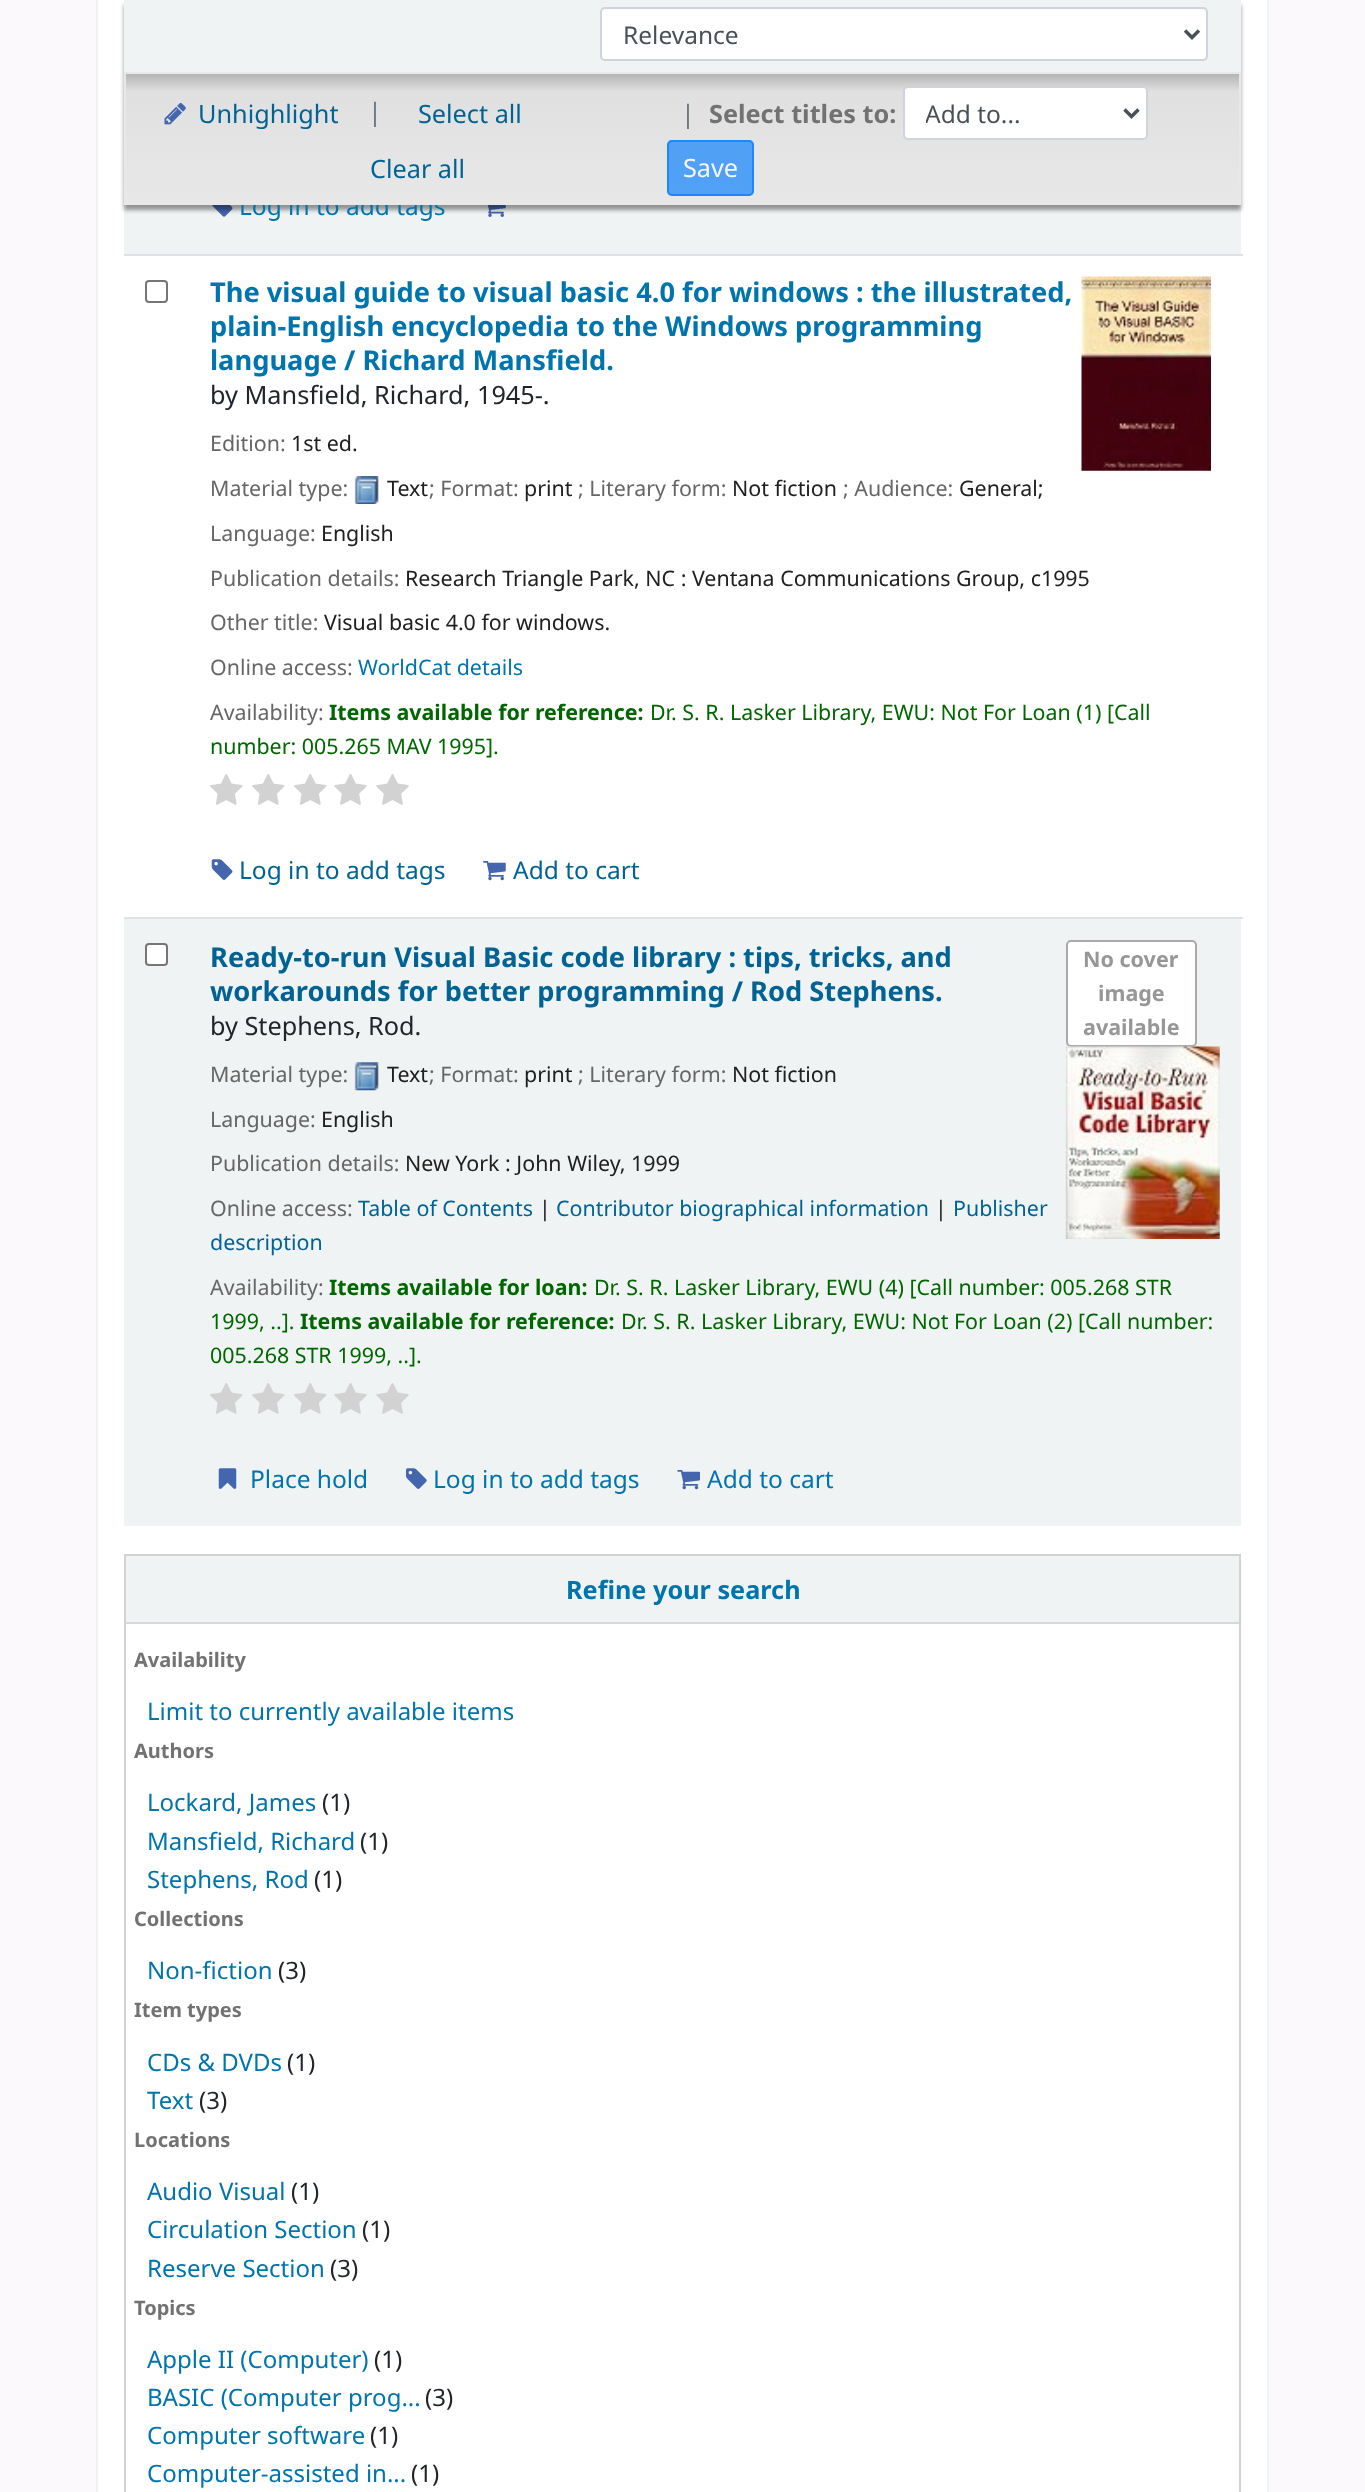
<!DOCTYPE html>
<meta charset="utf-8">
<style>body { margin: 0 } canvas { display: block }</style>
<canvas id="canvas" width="1365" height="2492"></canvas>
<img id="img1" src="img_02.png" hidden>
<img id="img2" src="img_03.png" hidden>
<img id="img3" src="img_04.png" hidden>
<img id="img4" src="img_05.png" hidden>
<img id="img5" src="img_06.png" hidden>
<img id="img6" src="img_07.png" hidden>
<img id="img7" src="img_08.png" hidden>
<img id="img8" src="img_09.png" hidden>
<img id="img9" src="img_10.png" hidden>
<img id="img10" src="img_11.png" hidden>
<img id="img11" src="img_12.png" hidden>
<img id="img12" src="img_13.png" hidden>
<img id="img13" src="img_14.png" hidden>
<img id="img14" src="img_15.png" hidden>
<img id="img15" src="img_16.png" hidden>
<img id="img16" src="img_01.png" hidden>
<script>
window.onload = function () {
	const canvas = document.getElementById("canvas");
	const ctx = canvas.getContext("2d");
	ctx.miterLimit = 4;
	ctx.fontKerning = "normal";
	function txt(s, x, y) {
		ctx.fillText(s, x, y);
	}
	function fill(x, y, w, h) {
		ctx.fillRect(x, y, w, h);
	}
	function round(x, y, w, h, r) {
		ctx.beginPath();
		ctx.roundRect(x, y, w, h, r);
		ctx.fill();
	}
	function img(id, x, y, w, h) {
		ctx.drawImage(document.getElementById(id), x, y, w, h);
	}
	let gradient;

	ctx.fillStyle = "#FCF9FC";
	fill(0, 0, 1365, 2492);
	ctx.fillStyle = "#FFFFFF";
	ctx.beginPath();
	ctx.rect(97, -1, 1171, 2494);
	ctx.fill();
	ctx.strokeStyle = "#F0F3F3";
	ctx.lineWidth = 2;
	ctx.stroke();
	ctx.fillStyle = "#F0F3F3";
	fill(124, 205, 1117, 49);
	img("img1", 212, 205, 21, 12);
	img("img2", 487, 205, 19, 12);
	ctx.fillStyle = "rgba(0, 0, 0, 0.4)";
	ctx.filter = "blur(2px)";
	ctx.beginPath();
	ctx.rect(124, 5, 1117, 205);
	ctx.fill();
	ctx.filter = "none";
	ctx.fillStyle = "#F0F3F3";
	fill(124, 0, 1117, 72);
	ctx.fillStyle = "#FFFFFF";
	ctx.beginPath();
	ctx.roundRect(601, 8, 606, 52, 4);
	ctx.fill();
	ctx.strokeStyle = "#CED4DA";
	ctx.stroke();
	ctx.beginPath();
	ctx.moveTo(1185, 30.5);
	ctx.lineTo(1192, 37.5);
	ctx.lineTo(1199, 30.5);
	ctx.strokeStyle = "#495057";
	ctx.lineWidth = 3.5;
	ctx.stroke();
	gradient = ctx.createLinearGradient(683, -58, 683, 74);
	gradient.addColorStop(0, "#B2B2B2");
	gradient.addColorStop(0.14, "#E0E0E0");
	gradient.addColorStop(1, "#E8E8E8");
	ctx.fillStyle = gradient;
	fill(124, 72, 1117, 2);
	ctx.fillStyle = "#E8E8E8";
	fill(1239, 72, 2, 133);
	fill(124, 72, 2, 133);
	ctx.beginPath();
	ctx.roundRect(146, 281, 21, 21, 3);
	ctx.strokeStyle = "#767676";
	ctx.lineWidth = 2;
	ctx.stroke();
	ctx.fillStyle = "#DEE2E6";
	fill(124, 254, 1119, 2);
	img("img3", 1081, 276, 130, 195);
	img("img4", 354, 476, 25, 28);
	img("img5", 210, 774, 33, 31);
	img("img5", 252, 774, 33, 31);
	img("img5", 294, 774, 33, 31);
	img("img6", 334, 774, 33, 31);
	img("img6", 376, 774, 33, 31);
	img("img7", 211, 859, 22, 21);
	img("img8", 483, 861, 23, 20);
	ctx.fillStyle = "#F0F3F3";
	fill(124, 919, 1117, 607);
	ctx.fillStyle = "#FFFFFF";
	ctx.beginPath();
	ctx.roundRect(146, 944, 21, 21, 3);
	ctx.fill();
	ctx.stroke();
	ctx.fillStyle = "#DEE2E6";
	fill(124, 917, 1119, 2);
	img("img9", 354, 1062, 25, 29);
	img("img10", 210, 1383, 33, 31);
	img("img10", 252, 1383, 33, 31);
	img("img10", 294, 1383, 33, 31);
	img("img11", 334, 1383, 33, 31);
	img("img11", 376, 1383, 33, 31);
	img("img12", 218, 1468, 19, 21);
	img("img13", 406, 1468, 21, 21);
	img("img14", 677, 1470, 23, 20);
	ctx.fillStyle = "#FFFFFF";
	ctx.beginPath();
	ctx.roundRect(1067, 941, 129, 105, 4);
	ctx.fill();
	ctx.strokeStyle = "#AAAAAA";
	ctx.stroke();
	img("img15", 1065, 1046, 155, 193);
	ctx.strokeStyle = "#D2D2CF";
	ctx.strokeRect(125, 1555, 1115, 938);
	ctx.fillStyle = "#F0F3F3";
	fill(126, 1556, 1113, 66);
	ctx.fillStyle = "#D8D8D8";
	fill(126, 1622, 1113, 2);
	ctx.font = "24.5px Noto Sans";
	ctx.fillStyle = "#495057";
	txt("Relevance", 623, 44);
	ctx.fillStyle = "#0074AD";
	txt("Log in to add tags", 239, 215);
	gradient = ctx.createLinearGradient(683, 73, 683, 205);
	gradient.addColorStop(0, "#B2B2B2");
	gradient.addColorStop(0.14, "#E0E0E0");
	gradient.addColorStop(1, "#E8E8E8");
	ctx.fillStyle = gradient;
	fill(126, 74, 1113, 131);
	ctx.fillStyle = "rgba(0, 123, 255, 0.65)";
	round(667, 140, 87, 56, 5);
	ctx.beginPath();
	ctx.roundRect(668, 141, 85, 54, 4);
	ctx.strokeStyle = "rgba(0, 123, 255, 0.65)";
	ctx.stroke();
	ctx.font = "25.25px Noto Sans";
	ctx.fillStyle = "#F6F6F6";
	txt("Save", 683, 177);
	ctx.fillStyle = "#FFFFFF";
	ctx.beginPath();
	ctx.roundRect(904, 87, 243, 52, 4);
	ctx.fill();
	ctx.strokeStyle = "#CED4DA";
	ctx.stroke();
	ctx.save();
	ctx.beginPath();
	ctx.rect(926, 95, 178, 36);
	ctx.clip();
	ctx.font = "24.5px Noto Sans";
	ctx.fillStyle = "#495057";
	txt("Add to...", 925, 123);
	ctx.restore();
	ctx.beginPath();
	ctx.moveTo(1124.5, 109.5);
	ctx.lineTo(1131.5, 116.5);
	ctx.lineTo(1138.5, 109.5);
	ctx.strokeStyle = "#495057";
	ctx.lineWidth = 3.5;
	ctx.stroke();
	ctx.font = "bold 25.25px Noto Sans";
	ctx.fillStyle = "#727272";
	txt("Select titles to:", 709, 123);
	ctx.font = "25.25px Noto Sans";
	ctx.fillStyle = "#6C757D";
	txt("|", 681, 123);
	ctx.fillStyle = "#006394";
	txt("Clear all", 370, 178);
	txt("Select all", 418, 123);
	ctx.fillStyle = "#6C757D";
	txt("|", 368, 121);
	ctx.fillStyle = "#006394";
	txt("Unhighlight", 198, 123);
	img("img16", 164, 103, 22, 22);
	ctx.font = "bold 27.25px Noto Sans";
	ctx.fillStyle = "#0074AD";
	txt("The visual guide to visual basic 4.0 for windows : the illustrated,", 210, 302);
	txt("plain-English encyclopedia to the Windows programming", 210, 336);
	txt("language / Richard Mansfield.", 210, 370);
	ctx.font = "25.25px Noto Sans";
	ctx.fillStyle = "#212529";
	txt("by Mansfield, Richard, 1945-.", 210, 404);
	ctx.font = "21.4px Noto Sans";
	ctx.fillStyle = "#666666";
	txt("Edition:", 210, 451);
	ctx.fillStyle = "#202020";
	txt("1st ed.", 291, 451);
	ctx.fillStyle = "#666666";
	txt("Material type:", 210, 496);
	ctx.fillStyle = "#202020";
	txt("Text", 387, 496);
	ctx.fillStyle = "#666666";
	txt("; Format:", 429, 496);
	ctx.fillStyle = "#202020";
	txt("print", 524, 496);
	ctx.fillStyle = "#666666";
	txt("; Literary form:", 578, 496);
	ctx.fillStyle = "#202020";
	txt("Not fiction", 732, 496);
	ctx.fillStyle = "#666666";
	txt("; Audience:", 843, 496);
	ctx.fillStyle = "#202020";
	txt("General;", 959, 496);
	ctx.fillStyle = "#666666";
	txt("Language:", 210, 541);
	ctx.fillStyle = "#202020";
	txt("English", 321, 541);
	ctx.fillStyle = "#666666";
	txt("Publication details:", 210, 586);
	ctx.fillStyle = "#202020";
	txt("Research Triangle Park, NC : Ventana Communications Group, c1995", 405, 586);
	ctx.fillStyle = "#666666";
	txt("Other title:", 210, 630);
	ctx.fillStyle = "#202020";
	txt("Visual basic 4.0 for windows.", 324, 630);
	ctx.fillStyle = "#666666";
	txt("Online access:", 210, 675);
	ctx.fillStyle = "#0074AD";
	txt("WorldCat details", 358, 675);
	ctx.fillStyle = "#666666";
	txt("Availability:", 210, 720);
	ctx.font = "bold 21.4px Noto Sans";
	ctx.fillStyle = "#006600";
	txt("Items available for reference:", 329, 720);
	ctx.font = "21.4px Noto Sans";
	txt("Dr. S. R. Lasker Library, EWU: Not For Loan (1) [Call", 650, 720);
	txt("number: 005.265 MAV 1995].", 210, 754);
	ctx.font = "24.5px Noto Sans";
	ctx.fillStyle = "#006394";
	txt("Log in to add tags", 239, 879);
	txt("Add to cart", 513, 879);
	ctx.font = "bold 27.25px Noto Sans";
	txt("Ready-to-run Visual Basic code library : tips, tricks, and", 210, 967);
	txt("workarounds for better programming / Rod Stephens.", 210, 1001);
	ctx.font = "25.25px Noto Sans";
	ctx.fillStyle = "#212529";
	txt("by Stephens, Rod.", 210, 1035);
	ctx.font = "21.4px Noto Sans";
	ctx.fillStyle = "#666666";
	txt("Material type:", 210, 1082);
	ctx.fillStyle = "#202020";
	txt("Text", 387, 1082);
	ctx.fillStyle = "#666666";
	txt("; Format:", 429, 1082);
	ctx.fillStyle = "#202020";
	txt("print", 524, 1082);
	ctx.fillStyle = "#666666";
	txt("; Literary form:", 578, 1082);
	ctx.fillStyle = "#202020";
	txt("Not fiction", 732, 1082);
	ctx.fillStyle = "#666666";
	txt("Language:", 210, 1127);
	ctx.fillStyle = "#202020";
	txt("English", 321, 1127);
	ctx.fillStyle = "#666666";
	txt("Publication details:", 210, 1171);
	ctx.fillStyle = "#202020";
	txt("New York : John Wiley, 1999", 405, 1171);
	ctx.fillStyle = "#666666";
	txt("Online access:", 210, 1216);
	ctx.fillStyle = "#006394";
	txt("Table of Contents", 358, 1216);
	ctx.fillStyle = "#202020";
	txt("|", 539, 1216);
	ctx.fillStyle = "#006394";
	txt("Contributor biographical information", 556, 1216);
	ctx.fillStyle = "#202020";
	txt("|", 935, 1216);
	ctx.fillStyle = "#006394";
	txt("Publisher", 953, 1216);
	txt("description", 210, 1250);
	ctx.fillStyle = "#666666";
	txt("Availability:", 210, 1295);
	ctx.font = "bold 21.4px Noto Sans";
	ctx.fillStyle = "#006600";
	txt("Items available for loan:", 329, 1295);
	ctx.font = "21.4px Noto Sans";
	txt("Dr. S. R. Lasker Library, EWU (4) [Call number: 005.268 STR", 594, 1295);
	txt("1999, ..].", 210, 1329);
	ctx.font = "bold 21.4px Noto Sans";
	txt("Items available for reference:", 300, 1329);
	ctx.font = "21.4px Noto Sans";
	txt("Dr. S. R. Lasker Library, EWU: Not For Loan (2) [Call number:", 621, 1329);
	txt("005.268 STR 1999, ..].", 210, 1363);
	ctx.font = "24.5px Noto Sans";
	ctx.fillStyle = "#0074AD";
	txt("Place hold", 250, 1488);
	txt("Log in to add tags", 433, 1488);
	txt("Add to cart", 707, 1488);
	ctx.font = "bold 21.5px Noto Sans";
	ctx.fillStyle = "#979797";
	txt("No cover", 1083, 967);
	txt("image", 1098, 1001);
	txt("available", 1083, 1035);
	ctx.font = "bold 25.25px Noto Sans";
	ctx.fillStyle = "#0074AD";
	txt("Refine your search", 566, 1599);
	ctx.font = "bold 20px Noto Sans";
	ctx.fillStyle = "#727272";
	txt("Availability", 134, 1667);
	ctx.font = "24px Noto Sans";
	ctx.fillStyle = "#0074AD";
	txt("Limit to currently available items", 147, 1720);
	ctx.font = "bold 20px Noto Sans";
	ctx.fillStyle = "#727272";
	txt("Authors", 134, 1758);
	ctx.font = "24px Noto Sans";
	ctx.fillStyle = "#0074AD";
	txt("Lockard, James", 147, 1811);
	ctx.fillStyle = "#212529";
	txt("(1)", 322, 1811);
	ctx.fillStyle = "#0074AD";
	txt("Mansfield, Richard", 147, 1850);
	ctx.fillStyle = "#212529";
	txt("(1)", 360, 1850);
	ctx.fillStyle = "#0074AD";
	txt("Stephens, Rod", 147, 1888);
	ctx.fillStyle = "#212529";
	txt("(1)", 314, 1888);
	ctx.font = "bold 20px Noto Sans";
	ctx.fillStyle = "#727272";
	txt("Collections", 134, 1926);
	ctx.font = "24px Noto Sans";
	ctx.fillStyle = "#0074AD";
	txt("Non-fiction", 147, 1979);
	ctx.fillStyle = "#212529";
	txt("(3)", 278, 1979);
	ctx.font = "bold 20px Noto Sans";
	ctx.fillStyle = "#727272";
	txt("Item types", 134, 2017);
	ctx.font = "24px Noto Sans";
	ctx.fillStyle = "#0074AD";
	txt("CDs & DVDs", 147, 2071);
	ctx.fillStyle = "#212529";
	txt("(1)", 287, 2071);
	ctx.fillStyle = "#0074AD";
	txt("Text", 147, 2109);
	ctx.fillStyle = "#212529";
	txt("(3)", 199, 2109);
	ctx.font = "bold 20px Noto Sans";
	ctx.fillStyle = "#727272";
	txt("Locations", 134, 2147);
	ctx.font = "24px Noto Sans";
	ctx.fillStyle = "#0074AD";
	txt("Audio Visual", 147, 2200);
	ctx.fillStyle = "#212529";
	txt("(1)", 291, 2200);
	ctx.fillStyle = "#0074AD";
	txt("Circulation Section", 147, 2238);
	ctx.fillStyle = "#212529";
	txt("(1)", 362, 2238);
	ctx.fillStyle = "#0074AD";
	txt("Reserve Section", 147, 2277);
	ctx.fillStyle = "#212529";
	txt("(3)", 330, 2277);
	ctx.font = "bold 20px Noto Sans";
	ctx.fillStyle = "#727272";
	txt("Topics", 134, 2315);
	ctx.font = "24px Noto Sans";
	ctx.fillStyle = "#0074AD";
	txt("Apple II (Computer)", 147, 2368);
	ctx.fillStyle = "#212529";
	txt("(1)", 374, 2368);
	ctx.fillStyle = "#0074AD";
	txt("BASIC (Computer prog...", 147, 2406);
	ctx.fillStyle = "#212529";
	txt("(3)", 425, 2406);
	ctx.fillStyle = "#0074AD";
	txt("Computer software", 147, 2444);
	ctx.fillStyle = "#212529";
	txt("(1)", 370, 2444);
	ctx.fillStyle = "#0074AD";
	txt("Computer-assisted in...", 147, 2482);
	ctx.fillStyle = "#212529";
	txt("(1)", 411, 2482);
};
</script>
